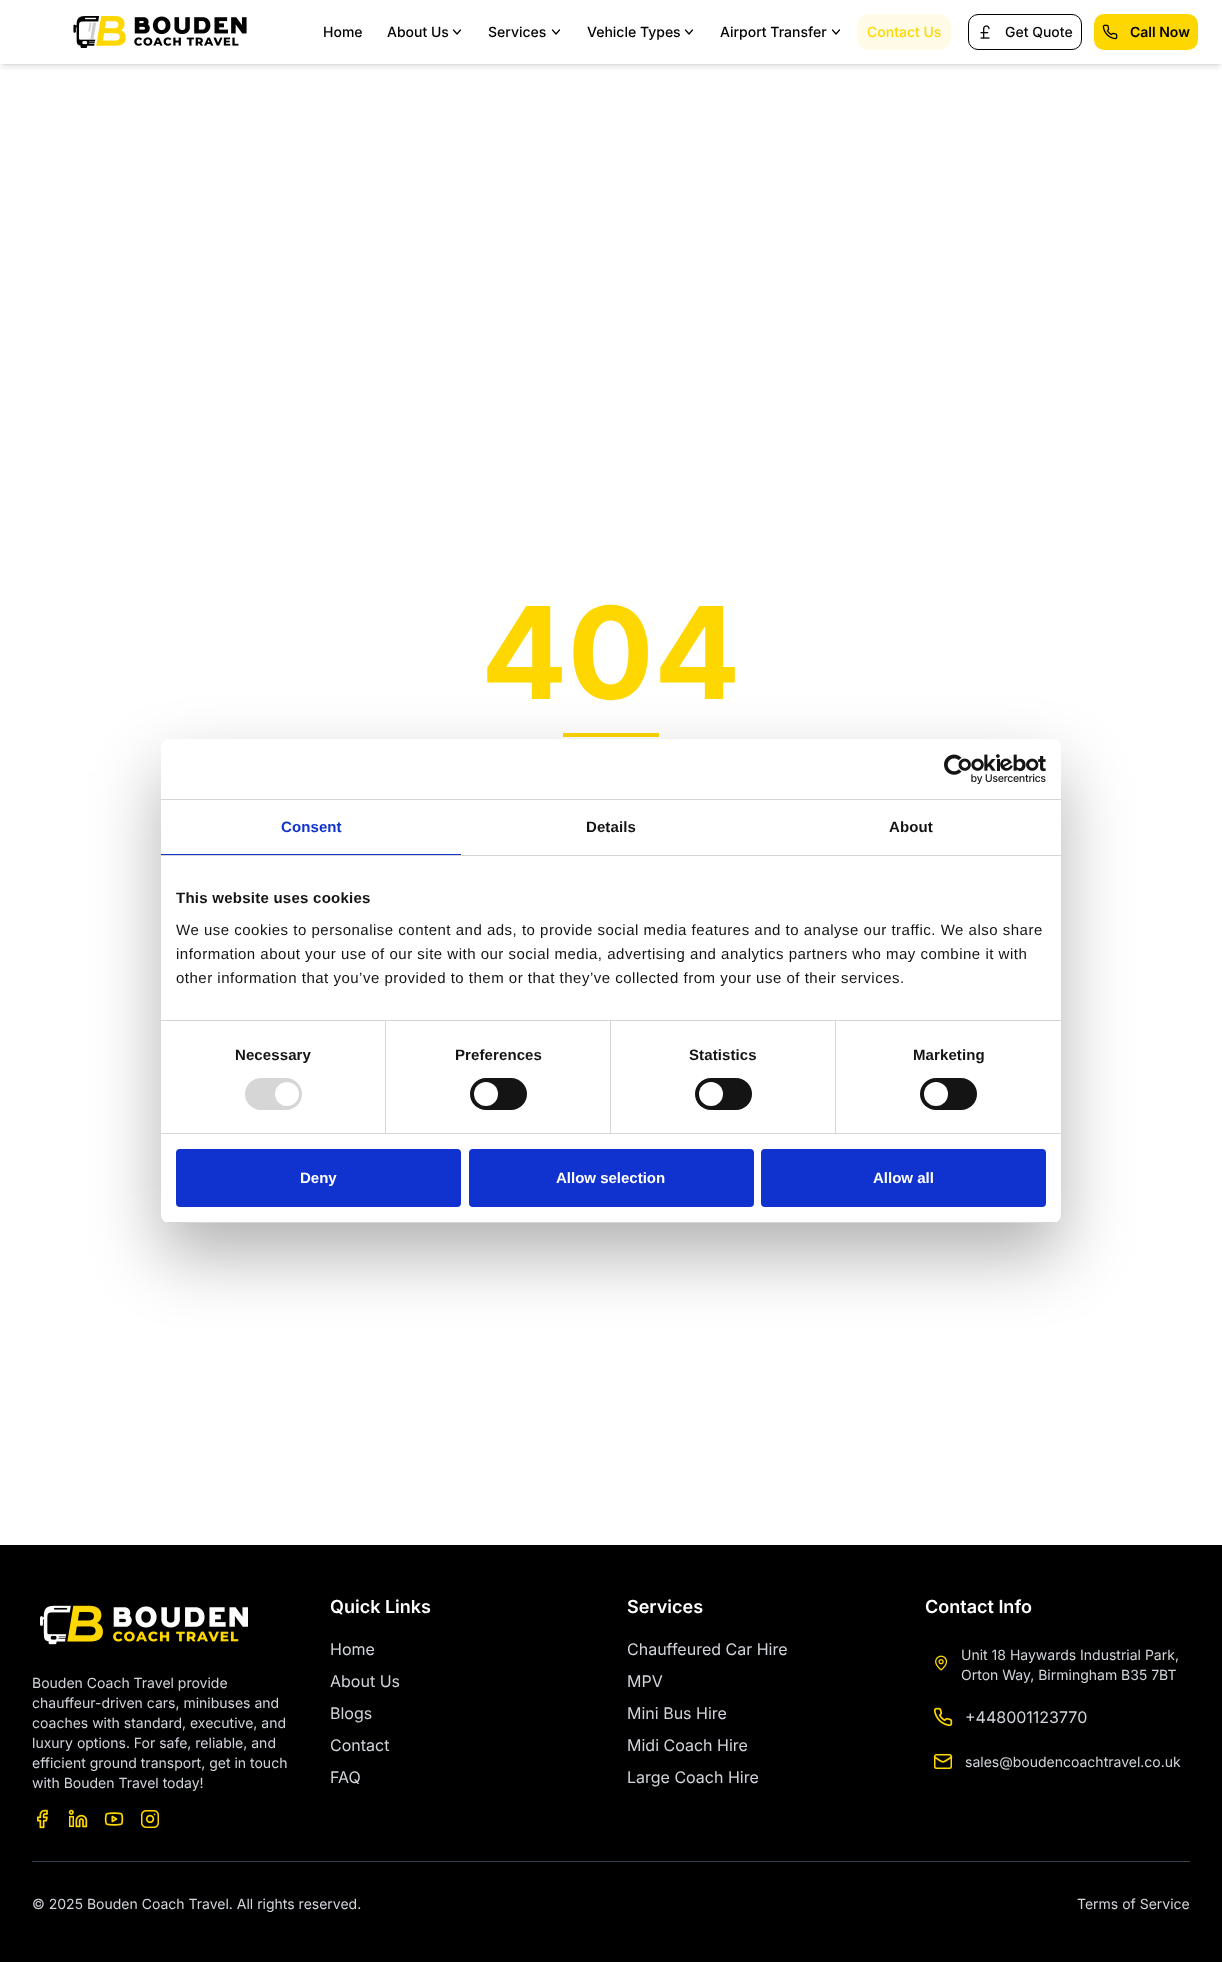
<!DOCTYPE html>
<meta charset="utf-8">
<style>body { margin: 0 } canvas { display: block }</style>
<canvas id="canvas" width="1222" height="1962"></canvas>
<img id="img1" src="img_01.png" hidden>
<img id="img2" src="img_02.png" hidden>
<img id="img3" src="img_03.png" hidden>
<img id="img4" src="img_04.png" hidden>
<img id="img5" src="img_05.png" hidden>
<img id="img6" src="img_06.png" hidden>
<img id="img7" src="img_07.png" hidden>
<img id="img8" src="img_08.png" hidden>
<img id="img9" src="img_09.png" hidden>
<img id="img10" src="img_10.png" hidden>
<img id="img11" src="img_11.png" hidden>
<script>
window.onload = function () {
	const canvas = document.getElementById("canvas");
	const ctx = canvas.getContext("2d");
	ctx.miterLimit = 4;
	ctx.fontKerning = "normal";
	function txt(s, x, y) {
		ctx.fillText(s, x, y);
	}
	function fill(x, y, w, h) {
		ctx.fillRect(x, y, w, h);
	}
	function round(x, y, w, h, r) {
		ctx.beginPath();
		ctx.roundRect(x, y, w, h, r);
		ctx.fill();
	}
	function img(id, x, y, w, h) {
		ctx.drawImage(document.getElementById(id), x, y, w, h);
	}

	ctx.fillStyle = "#FFFFFF";
	fill(0, 0, 1222, 1962);
	ctx.save();
	ctx.beginPath();
	ctx.rect(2, 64, 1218, 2);
	ctx.clip();
	ctx.fillStyle = "rgba(0, 0, 0, 0.1)";
	ctx.filter = "blur(2px)";
	ctx.beginPath();
	ctx.rect(2, 4, 1218, 60);
	ctx.fill();
	ctx.filter = "none";
	ctx.restore();
	ctx.save();
	ctx.beginPath();
	ctx.rect(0, 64, 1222, 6);
	ctx.clip();
	ctx.fillStyle = "rgba(0, 0, 0, 0.1)";
	ctx.filter = "blur(3px)";
	ctx.beginPath();
	ctx.rect(1, 5, 1220, 62);
	ctx.fill();
	ctx.filter = "none";
	ctx.restore();
	img("img1", 73, 16, 174, 32);
	ctx.beginPath();
	ctx.moveTo(453.5, 30);
	ctx.lineTo(457, 34);
	ctx.lineTo(460.5, 30);
	ctx.strokeStyle = "#000000";
	ctx.lineWidth = 1.2;
	ctx.lineCap = "round";
	ctx.lineJoin = "round";
	ctx.stroke();
	ctx.beginPath();
	ctx.moveTo(552.5, 30);
	ctx.lineTo(556, 34);
	ctx.lineTo(559.5, 30);
	ctx.stroke();
	ctx.beginPath();
	ctx.moveTo(685.5, 30);
	ctx.lineTo(689, 34);
	ctx.lineTo(692.5, 30);
	ctx.stroke();
	ctx.beginPath();
	ctx.moveTo(832.5, 30);
	ctx.lineTo(836, 34);
	ctx.lineTo(839.5, 30);
	ctx.stroke();
	ctx.fillStyle = "#FFFBE6";
	round(857, 14, 94, 36, 12);
	ctx.beginPath();
	ctx.roundRect(968.5, 14.5, 113, 35, 9.5);
	ctx.lineWidth = 1;
	ctx.lineJoin = "miter";
	ctx.stroke();
	img("img2", 980, 25, 10, 14);
	ctx.fillStyle = "#FFD700";
	round(1094, 14, 104, 36, 10);
	img("img3", 1102, 24, 16, 16);
	fill(563, 733, 96, 4);
	ctx.fillStyle = "#000000";
	fill(0, 1545, 1222, 417);
	img("img4", 40, 1605, 208, 40);
	img("img5", 37, 1809, 11, 20);
	img("img6", 68, 1809, 20, 19);
	img("img7", 104, 1812, 20, 14);
	img("img8", 141, 1810, 18, 18);
	img("img9", 935, 1655, 13, 16);
	img("img10", 933, 1707, 20, 20);
	ctx.beginPath();
	ctx.roundRect(934.75, 1754.75, 16.5, 13.5, 1.75);
	ctx.strokeStyle = "#FFD700";
	ctx.lineWidth = 1.5;
	ctx.stroke();
	ctx.beginPath();
	ctx.moveTo(951.5, 1757);
	ctx.bezierCurveTo(941, 1763.5, 945, 1763.5, 934.5, 1757);
	ctx.lineWidth = 1.7;
	ctx.lineJoin = "round";
	ctx.stroke();
	ctx.fillStyle = "#374151";
	fill(32, 1861, 1158, 1);
	ctx.fillStyle = "rgba(0, 0, 0, 0.3)";
	ctx.filter = "blur(34px)";
	ctx.beginPath();
	ctx.roundRect(161, 771, 900, 484, 8);
	ctx.fill();
	ctx.filter = "none";
	ctx.fillStyle = "#FFFFFF";
	round(161, 739, 900, 484, 8);
	ctx.fillStyle = "#D6D6D6";
	fill(161, 799, 900, 1);
	img("img11", 944, 754, 102, 30);
	fill(161, 855, 900, 1);
	ctx.fillStyle = "#1032CF";
	fill(161, 854, 300, 1);
	ctx.fillStyle = "#D6D6D6";
	fill(161, 1020, 900, 1);
	fill(161, 1133, 900, 1);
	fill(385, 1021, 1, 112);
	round(245, 1078, 57, 32, 16);
	ctx.fillStyle = "#FFFFFF";
	ctx.beginPath();
	ctx.arc(287, 1094, 12, 0, Math.PI * 2);
	ctx.fill();
	ctx.fillStyle = "#D6D6D6";
	fill(610, 1021, 1, 112);
	ctx.fillStyle = "#141414";
	round(470, 1078, 57, 32, 16);
	ctx.fillStyle = "#FFFFFF";
	ctx.beginPath();
	ctx.arc(486, 1094, 12, 0, Math.PI * 2);
	ctx.fill();
	ctx.fillStyle = "#D6D6D6";
	fill(835, 1021, 1, 112);
	ctx.fillStyle = "#141414";
	round(695, 1078, 57, 32, 16);
	ctx.fillStyle = "#FFFFFF";
	ctx.beginPath();
	ctx.arc(711, 1094, 12, 0, Math.PI * 2);
	ctx.fill();
	ctx.fillStyle = "#141414";
	round(920, 1078, 57, 32, 16);
	ctx.fillStyle = "#FFFFFF";
	ctx.beginPath();
	ctx.arc(936, 1094, 12, 0, Math.PI * 2);
	ctx.fill();
	ctx.save();
	ctx.beginPath();
	ctx.roundRect(161, 739, 900, 484, 8);
	ctx.clip();
	ctx.fillStyle = "#D6D6D6";
	fill(161, 1222, 900, 1);
	ctx.restore();
	ctx.fillStyle = "#1032CF";
	ctx.beginPath();
	ctx.roundRect(177, 1150, 283, 56, 3);
	ctx.fill();
	ctx.strokeStyle = "#1032CF";
	ctx.lineWidth = 2;
	ctx.lineJoin = "miter";
	ctx.stroke();
	ctx.beginPath();
	ctx.roundRect(470, 1150, 283, 56, 3);
	ctx.fill();
	ctx.stroke();
	ctx.beginPath();
	ctx.roundRect(762, 1150, 283, 56, 3);
	ctx.fill();
	ctx.stroke();
	ctx.font = "500 14px Inter";
	ctx.fillStyle = "#000000";
	txt("Home", 323, 37);
	txt("About Us", 387, 37);
	txt("Services", 488, 37);
	txt("Vehicle Types", 587, 37);
	txt("Airport Transfer", 720, 37);
	ctx.fillStyle = "#FFD700";
	txt("Contact Us", 867, 37);
	ctx.fillStyle = "#0A0A0A";
	txt("Get Quote", 1005, 37);
	ctx.font = "600 14px Inter";
	ctx.fillStyle = "#000000";
	txt("Call Now", 1130, 37);
	ctx.font = "bold 128px Inter";
	ctx.fillStyle = "#FFD700";
	txt("404", 481, 699);
	ctx.font = "14px Inter";
	ctx.fillStyle = "#D1D5DB";
	txt("Bouden Coach Travel provide", 32, 1688);
	txt("chauffeur-driven cars, minibuses and", 32, 1708);
	txt("coaches with standard, executive, and", 32, 1728);
	txt("luxury options. For safe, reliable, and", 32, 1748);
	txt("efficient ground transport, get in touch", 32, 1768);
	txt("with Bouden Travel today!", 32, 1788);
	ctx.font = "600 18px Inter";
	ctx.fillStyle = "#FFFFFF";
	txt("Quick Links", 330, 1613);
	ctx.font = "16px Inter";
	ctx.fillStyle = "#D1D5DB";
	txt("Home", 330, 1655);
	txt("About Us", 330, 1687);
	txt("Blogs", 330, 1719);
	txt("Contact", 330, 1751);
	txt("FAQ", 330, 1783);
	ctx.font = "600 18px Inter";
	ctx.fillStyle = "#FFFFFF";
	txt("Services", 627, 1613);
	ctx.font = "16px Inter";
	ctx.fillStyle = "#D1D5DB";
	txt("Chauffeured Car Hire", 627, 1655);
	txt("MPV", 627, 1687);
	txt("Mini Bus Hire", 627, 1719);
	txt("Midi Coach Hire", 627, 1751);
	txt("Large Coach Hire", 627, 1783);
	ctx.font = "600 18px Inter";
	ctx.fillStyle = "#FFFFFF";
	txt("Contact Info", 925, 1613);
	ctx.font = "14px Inter";
	ctx.fillStyle = "#D1D5DB";
	txt("Unit 18 Haywards Industrial Park,", 961, 1660);
	txt("Orton Way, Birmingham B35 7BT", 961, 1680);
	ctx.font = "16px Inter";
	txt("+448001123770", 965, 1723);
	ctx.font = "14px Inter";
	txt("sales@boudencoachtravel.co.uk", 965, 1767);
	txt("© 2025 Bouden Coach Travel. All rights reserved.", 32, 1909);
	txt("Terms of Service", 1077, 1909);
	ctx.letterSpacing = "0.1px";
	ctx.font = "bold 15px Liberation Sans";
	ctx.fillStyle = "#1032CF";
	txt("Consent", 281, 832);
	ctx.fillStyle = "#141414";
	txt("Details", 586, 832);
	txt("About", 889, 832);
	ctx.letterSpacing = "0.25px";
	txt("This website uses cookies", 176, 903);
	ctx.letterSpacing = "0.5px";
	ctx.font = "15px Liberation Sans";
	txt("We use cookies to personalise content and ads, to provide social media features and to analyse our traffic. We also share", 176, 935);
	txt("information about your use of our site with our social media, advertising and analytics partners who may combine it with", 176, 959);
	txt("other information that you’ve provided to them or that they’ve collected from your use of their services.", 176, 983);
	ctx.letterSpacing = "0.1px";
	ctx.font = "bold 15px Liberation Sans";
	txt("Necessary", 235, 1060);
	txt("Preferences", 455, 1060);
	txt("Statistics", 689, 1060);
	txt("Marketing", 913, 1060);
	ctx.letterSpacing = "0px";
	ctx.fillStyle = "#FFFFFF";
	txt("Deny", 300, 1183);
	txt("Allow selection", 556, 1183);
	txt("Allow all", 873, 1183);
};
</script>
